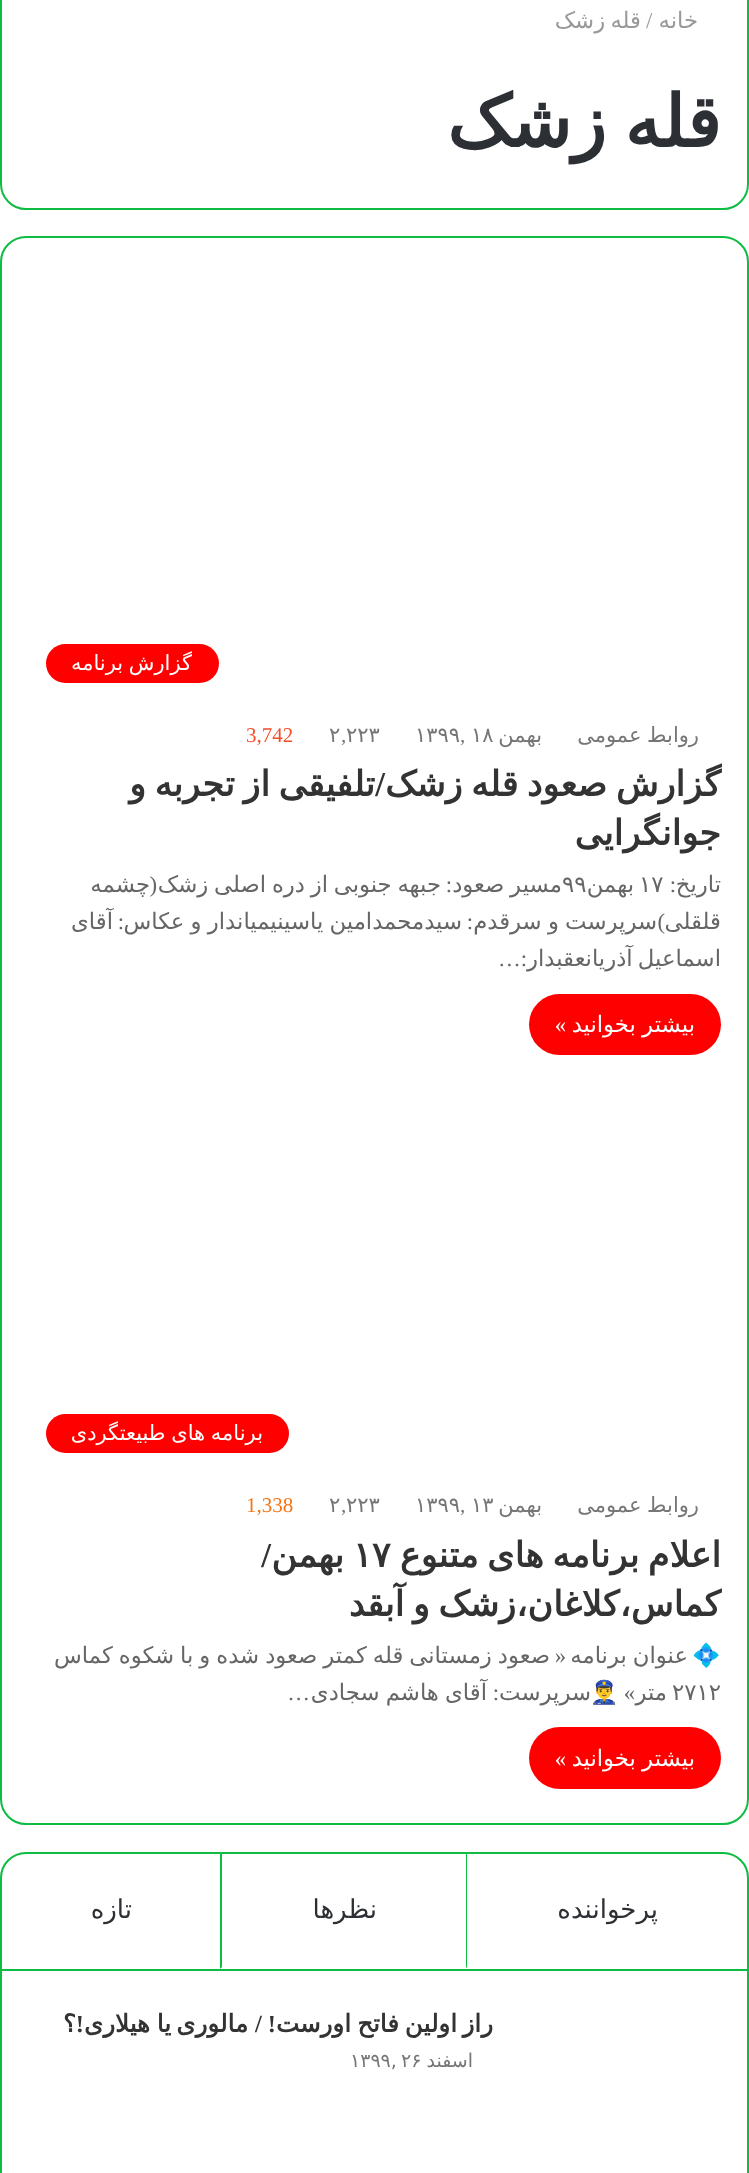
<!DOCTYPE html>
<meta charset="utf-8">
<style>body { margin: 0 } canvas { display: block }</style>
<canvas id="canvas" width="749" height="2173"></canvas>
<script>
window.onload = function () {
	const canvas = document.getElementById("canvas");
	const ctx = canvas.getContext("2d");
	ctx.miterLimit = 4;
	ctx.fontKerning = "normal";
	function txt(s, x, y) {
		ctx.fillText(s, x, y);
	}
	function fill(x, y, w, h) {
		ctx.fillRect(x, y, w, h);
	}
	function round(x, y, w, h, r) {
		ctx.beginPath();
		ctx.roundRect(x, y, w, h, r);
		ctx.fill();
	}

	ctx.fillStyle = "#FFFFFF";
	fill(0, 0, 749, 2173);
	ctx.beginPath();
	ctx.roundRect(1, -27, 747, 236, 25);
	ctx.strokeStyle = "#0FBC43";
	ctx.lineWidth = 2;
	ctx.stroke();
	ctx.beginPath();
	ctx.roundRect(1, 237, 747, 1587, 25);
	ctx.stroke();
	ctx.fillStyle = "#FF0000";
	round(46, 644, 173, 39, 19.5);
	round(529, 994, 192, 61, 30.5);
	round(46, 1414, 243, 39, 19.5);
	round(529, 1727, 192, 62, 31);
	ctx.beginPath();
	ctx.roundRect(1, 1853, 747, 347, 25);
	ctx.stroke();
	ctx.fillStyle = "#0FBC43";
	fill(2, 1969, 745, 2);
	ctx.beginPath();
	ctx.moveTo(466, 1968);
	ctx.lineTo(466, 1853);
	ctx.lineTo(467, 1853);
	ctx.lineTo(467, 1967);
	ctx.closePath();
	ctx.fill();
	ctx.beginPath();
	ctx.moveTo(220, 1969);
	ctx.lineTo(220, 1853);
	ctx.lineTo(222, 1853);
	ctx.lineTo(222, 1967);
	ctx.closePath();
	ctx.fill();
	ctx.direction = "rtl";
	ctx.font = "22.75px DejaVu Sans";
	ctx.fillStyle = "#999999";
	txt("خانه", 698, 28);
	ctx.direction = "ltr";
	ctx.font = "22.75px Liberation Serif";
	txt("/", 646, 28);
	ctx.wordSpacing = "-2px";
	ctx.direction = "rtl";
	ctx.font = "22.75px DejaVu Sans";
	txt("قله زشک", 641, 28);
	ctx.wordSpacing = "-5px";
	ctx.font = "bold 72px DejaVu Sans";
	ctx.fillStyle = "#2C2F34";
	txt("قله زشک", 721, 147);
	ctx.wordSpacing = "-1px";
	ctx.font = "21px DejaVu Sans";
	ctx.fillStyle = "#FFFFFF";
	txt("گزارش برنامه", 192, 670);
	ctx.fillStyle = "#767676";
	txt("روابط عمومی", 699, 742);
	ctx.wordSpacing = "0px";
	txt("بهمن", 542, 742);
	ctx.direction = "ltr";
	txt("۱۸", 471, 742);
	ctx.font = "21px Liberation Serif";
	txt(",", 460, 742);
	ctx.font = "21px DejaVu Sans";
	txt("۱۳۹۹", 415, 742);
	txt("۲۲۳", 346, 742);
	ctx.font = "21px Liberation Serif";
	txt(",", 341, 742);
	ctx.font = "21px DejaVu Sans";
	txt("۲", 329, 742);
	ctx.font = "21px Liberation Serif";
	ctx.fillStyle = "#F3502A";
	txt("3,742", 246, 742);
	ctx.wordSpacing = "-2.5px";
	ctx.direction = "rtl";
	ctx.font = "bold 35px DejaVu Sans";
	ctx.fillStyle = "#333333";
	txt("گزارش صعود قله زشک", 721, 796);
	ctx.wordSpacing = "0px";
	ctx.font = "bold 35px Liberation Serif";
	txt("/", 385, 796);
	ctx.wordSpacing = "-2.5px";
	ctx.font = "bold 35px DejaVu Sans";
	txt("تلفیقی از تجربه و", 375, 796);
	ctx.wordSpacing = "0px";
	txt("جوانگرایی", 721, 845);
	ctx.font = "22.75px DejaVu Sans";
	ctx.fillStyle = "#666666";
	txt("تاریخ", 721, 892);
	ctx.font = "22.75px Liberation Serif";
	txt(":", 676, 892);
	ctx.direction = "ltr";
	ctx.font = "22.75px DejaVu Sans";
	txt("۱۷", 639, 892);
	ctx.direction = "rtl";
	txt("بهمن", 634, 892);
	ctx.direction = "ltr";
	txt("۹۹", 562, 892);
	ctx.wordSpacing = "-1.5px";
	ctx.direction = "rtl";
	txt("مسیر صعود", 562, 892);
	ctx.wordSpacing = "0px";
	ctx.font = "22.75px Liberation Serif";
	txt(":", 452, 892);
	ctx.wordSpacing = "-1.5px";
	ctx.font = "22.75px DejaVu Sans";
	txt("جبهه جنوبی از دره اصلی زشک", 441, 892);
	ctx.wordSpacing = "0px";
	ctx.font = "22.75px Liberation Serif";
	txt("(", 157, 892);
	ctx.font = "22.75px DejaVu Sans";
	txt("چشمه", 150, 892);
	txt("قلقلی", 721, 929);
	ctx.font = "22.75px Liberation Serif";
	txt(")", 665, 929);
	ctx.wordSpacing = "-1px";
	ctx.font = "22.75px DejaVu Sans";
	txt("سرپرست و سرقدم", 657, 929);
	ctx.wordSpacing = "0px";
	ctx.font = "22.75px Liberation Serif";
	txt(":", 473, 929);
	ctx.wordSpacing = "-1px";
	ctx.font = "22.75px DejaVu Sans";
	txt("سیدمحمدامین یاسینیمیاندار و عکاس", 462, 929);
	ctx.wordSpacing = "0px";
	ctx.font = "22.75px Liberation Serif";
	txt(":", 124, 929);
	ctx.font = "22.75px DejaVu Sans";
	txt("آقای", 113, 929);
	ctx.wordSpacing = "-2px";
	txt("اسماعیل آذریانعقبدار", 721, 966);
	ctx.wordSpacing = "0px";
	ctx.font = "22.75px Liberation Serif";
	txt(":…", 527, 966);
	ctx.wordSpacing = "-1px";
	ctx.font = "22.75px DejaVu Sans";
	ctx.fillStyle = "#FFFFFF";
	txt("بیشتر بخوانید", 695, 1032);
	ctx.wordSpacing = "0px";
	ctx.font = "22.75px Liberation Serif";
	txt("»", 566, 1032);
	ctx.wordSpacing = "-1px";
	ctx.font = "21px DejaVu Sans";
	txt("برنامه های طبیعتگردی", 263, 1440);
	ctx.fillStyle = "#767676";
	txt("روابط عمومی", 699, 1512);
	ctx.wordSpacing = "0px";
	txt("بهمن", 542, 1512);
	ctx.direction = "ltr";
	txt("۱۳", 471, 1512);
	ctx.font = "21px Liberation Serif";
	txt(",", 460, 1512);
	ctx.font = "21px DejaVu Sans";
	txt("۱۳۹۹", 415, 1512);
	txt("۲۲۳", 346, 1512);
	ctx.font = "21px Liberation Serif";
	txt(",", 341, 1512);
	ctx.font = "21px DejaVu Sans";
	txt("۲", 329, 1512);
	ctx.font = "21px Liberation Serif";
	ctx.fillStyle = "#F47512";
	txt("1,338", 246, 1512);
	ctx.wordSpacing = "-2.5px";
	ctx.direction = "rtl";
	ctx.font = "bold 35px DejaVu Sans";
	ctx.fillStyle = "#333333";
	txt("اعلام برنامه های متنوع", 721, 1567);
	ctx.wordSpacing = "0px";
	ctx.direction = "ltr";
	txt("۱۷", 353, 1567);
	ctx.direction = "rtl";
	txt("بهمن", 344, 1567);
	ctx.font = "bold 35px Liberation Serif";
	txt("/", 271, 1567);
	ctx.wordSpacing = "-2.5px";
	ctx.font = "bold 35px DejaVu Sans";
	txt("کماس،کلاغان،زشک و آبقد", 721, 1616);
	ctx.wordSpacing = "0px";
	ctx.font = "22.75px Noto Color Emoji";
	ctx.fillStyle = "#666666";
	txt("💠", 721, 1663);
	ctx.wordSpacing = "-1.25px";
	ctx.font = "22.75px DejaVu Sans";
	txt("عنوان برنامه", 688, 1663);
	ctx.wordSpacing = "0px";
	ctx.font = "22.75px Liberation Serif";
	txt("«", 566, 1663);
	ctx.wordSpacing = "-1.25px";
	ctx.font = "22.75px DejaVu Sans";
	txt("صعود زمستانی قله کمتر صعود شده و با شکوه کماس", 550, 1663);
	ctx.wordSpacing = "0px";
	ctx.direction = "ltr";
	txt("۲۷۱۲", 672, 1700);
	ctx.direction = "rtl";
	ctx.font = "22.75px Liberation Serif";
	txt("»", 635, 1700);
	ctx.font = "22.75px DejaVu Sans";
	txt("متر", 667, 1700);
	ctx.font = "22.75px Noto Color Emoji";
	txt("👮‍♂️", 619, 1700);
	ctx.font = "22.75px DejaVu Sans";
	txt("سرپرست", 591, 1700);
	ctx.font = "22.75px Liberation Serif";
	txt(":", 499, 1700);
	ctx.wordSpacing = "-1px";
	ctx.font = "22.75px DejaVu Sans";
	txt("آقای هاشم سجادی", 487, 1700);
	ctx.wordSpacing = "0px";
	ctx.font = "22.75px Liberation Serif";
	txt("…", 310, 1700);
	ctx.wordSpacing = "-1px";
	ctx.font = "22.75px DejaVu Sans";
	ctx.fillStyle = "#FFFFFF";
	txt("بیشتر بخوانید", 695, 1766);
	ctx.wordSpacing = "0px";
	ctx.font = "22.75px Liberation Serif";
	txt("»", 566, 1766);
	ctx.font = "26px DejaVu Sans";
	ctx.fillStyle = "#2C2F34";
	txt("پرخواننده", 658, 1918);
	txt("نظرها", 377, 1918);
	txt("تازه", 132, 1918);
	ctx.font = "bold 24.5px DejaVu Sans";
	ctx.fillStyle = "#333333";
	txt("راز", 493, 2032);
	txt("اولین", 457, 2032);
	txt("فاتح", 399, 2032);
	txt("اورست", 351, 2032);
	ctx.font = "bold 24.5px Liberation Serif";
	txt("! /", 276, 2032);
	ctx.font = "bold 24.5px DejaVu Sans";
	txt("مالوری", 248, 2032);
	txt("یا", 171, 2032);
	txt("هیلاری", 150, 2032);
	ctx.font = "bold 24.5px Liberation Serif";
	txt("!", 84, 2032);
	ctx.font = "bold 24.5px DejaVu Sans";
	txt("؟", 76, 2032);
	ctx.font = "19px DejaVu Sans";
	ctx.fillStyle = "#767676";
	txt("اسفند", 473, 2067);
	ctx.direction = "ltr";
	txt("۲۶", 401, 2067);
	txt("۱۳۹۹,", 350, 2067);
};
</script>
